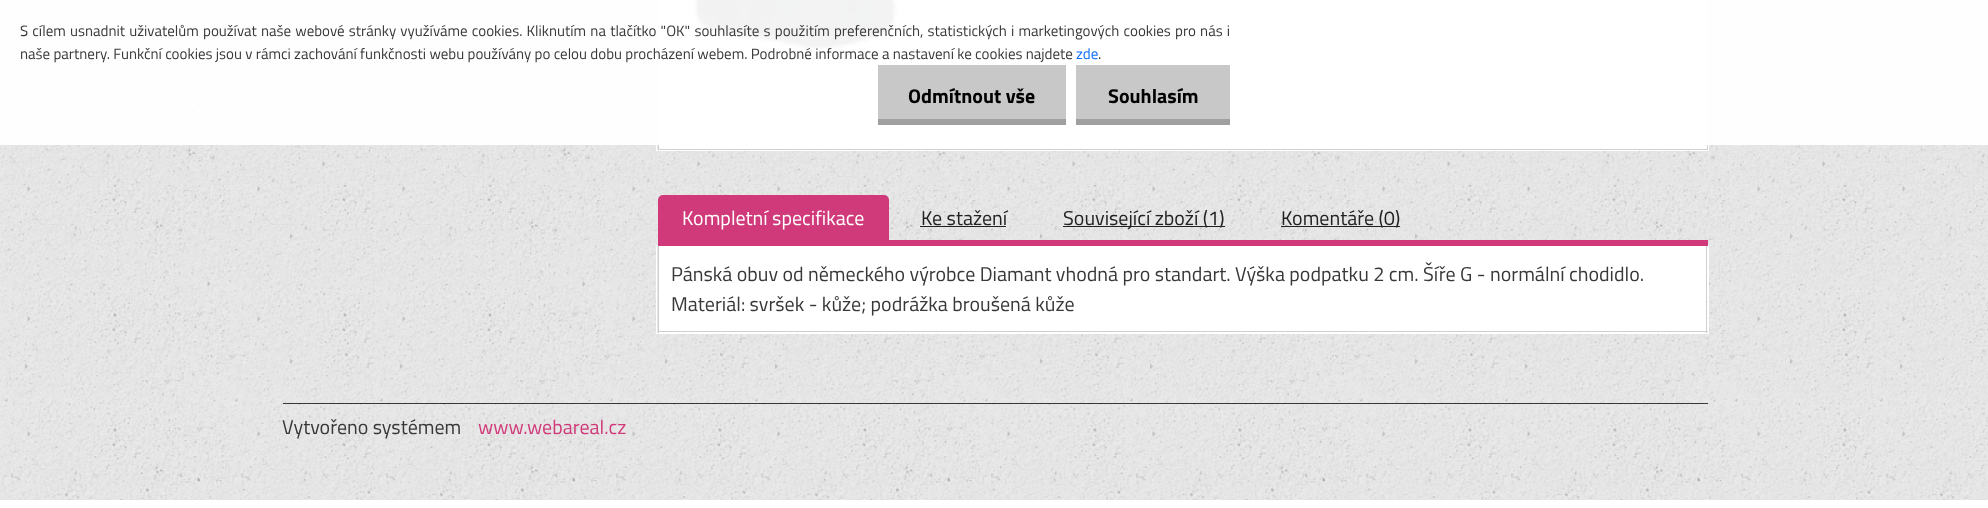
<!DOCTYPE html>
<meta charset="utf-8">
<style>body { margin: 0 } canvas { display: block }</style>
<canvas id="canvas" width="1988" height="508"></canvas>
<img id="img1" src="img_01.png" hidden>
<img id="img2" src="img_02.png" hidden>
<script>
window.onload = function () {
	const canvas = document.getElementById("canvas");
	const ctx = canvas.getContext("2d");
	ctx.miterLimit = 4;
	ctx.fontKerning = "normal";
	function txt(s, x, y) {
		ctx.fillText(s, x, y);
	}
	function fill(x, y, w, h) {
		ctx.fillRect(x, y, w, h);
	}
	function img(id, x, y, w, h) {
		ctx.drawImage(document.getElementById(id), x, y, w, h);
	}

	ctx.fillStyle = "#FFFFFF";
	fill(0, 0, 1988, 508);
	img("img1", 0, 0, 1988, 500);
	ctx.strokeStyle = "#FFFFFF";
	ctx.strokeRect(656.5, -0.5, 1052, 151);
	ctx.beginPath();
	ctx.rect(658.5, -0.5, 1049, 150);
	ctx.fill();
	ctx.strokeStyle = "#CFCFCF";
	ctx.stroke();
	img("img2", 677, 0, 236, 130);
	ctx.fillStyle = "rgba(255, 255, 255, 0.95)";
	fill(0, 0, 1988, 145);
	ctx.fillStyle = "#C8C8C8";
	fill(878, 65, 188, 54);
	ctx.fillStyle = "#A0A0A0";
	fill(878, 119, 188, 6);
	ctx.fillStyle = "#C8C8C8";
	fill(1076, 65, 154, 54);
	ctx.fillStyle = "#A0A0A0";
	fill(1076, 119, 154, 6);
	ctx.strokeStyle = "#FFFFFF";
	ctx.strokeRect(656.5, 245.5, 1052, 88);
	ctx.fillStyle = "#D13A7A";
	fill(658, 240, 1050, 6);
	ctx.beginPath();
	ctx.roundRect(658, 195, 231, 45, [5, 5, 0, 0]);
	ctx.fill();
	ctx.fillStyle = "#222222";
	fill(920, 226, 86, 1);
	fill(1063, 226, 162, 1);
	fill(1281, 226, 119, 1);
	ctx.fillStyle = "#FFFFFF";
	fill(659, 246, 1049, 87);
	ctx.fillStyle = "#CFCFCF";
	fill(1706, 246, 1, 87);
	fill(658, 331, 1050, 1);
	fill(658, 246, 1, 87);
	ctx.fillStyle = "#383838";
	fill(283, 403, 1425, 1);
	ctx.wordSpacing = "0.9px";
	ctx.font = "15px Titillium Web";
	txt("S cílem usnadnit uživatelům používat naše webové stránky využíváme cookies. Kliknutím na tlačítko \"OK\" souhlasíte s použitím preferenčních, statistických i marketingových cookies pro nás i", 20, 36);
	ctx.wordSpacing = "0px";
	txt("naše partnery. Funkční cookies jsou v rámci zachování funkčnosti webu používány po celou dobu procházení webem. Podrobné informace a nastavení ke cookies najdete", 20, 59);
	ctx.fillStyle = "#0D6EFD";
	txt("zde", 1076, 59);
	ctx.fillStyle = "#383838";
	txt(".", 1098, 59);
	ctx.font = "bold 20px Titillium Web";
	ctx.fillStyle = "#000000";
	txt("Odmítnout vše", 908, 103);
	txt("Souhlasím", 1108, 103);
	ctx.font = "20px Titillium Web";
	ctx.fillStyle = "#FFFFFF";
	txt("Kompletní specifikace", 682, 225);
	ctx.fillStyle = "#222222";
	txt("Ke stažení", 921, 225);
	txt("Související zboží (1)", 1063, 225);
	txt("Komentáře (0)", 1281, 225);
	ctx.fillStyle = "#383838";
	txt("Pánská obuv od německého výrobce Diamant vhodná pro standart. Výška podpatku 2 cm. Šíře G - normální chodidlo.", 671, 281);
	txt("Materiál: svršek - kůže; podrážka broušená kůže", 671, 311);
	txt("Vytvořeno systémem", 282, 434);
	ctx.fillStyle = "#D13A7A";
	txt("www.webareal.cz", 478, 434);
};
</script>
